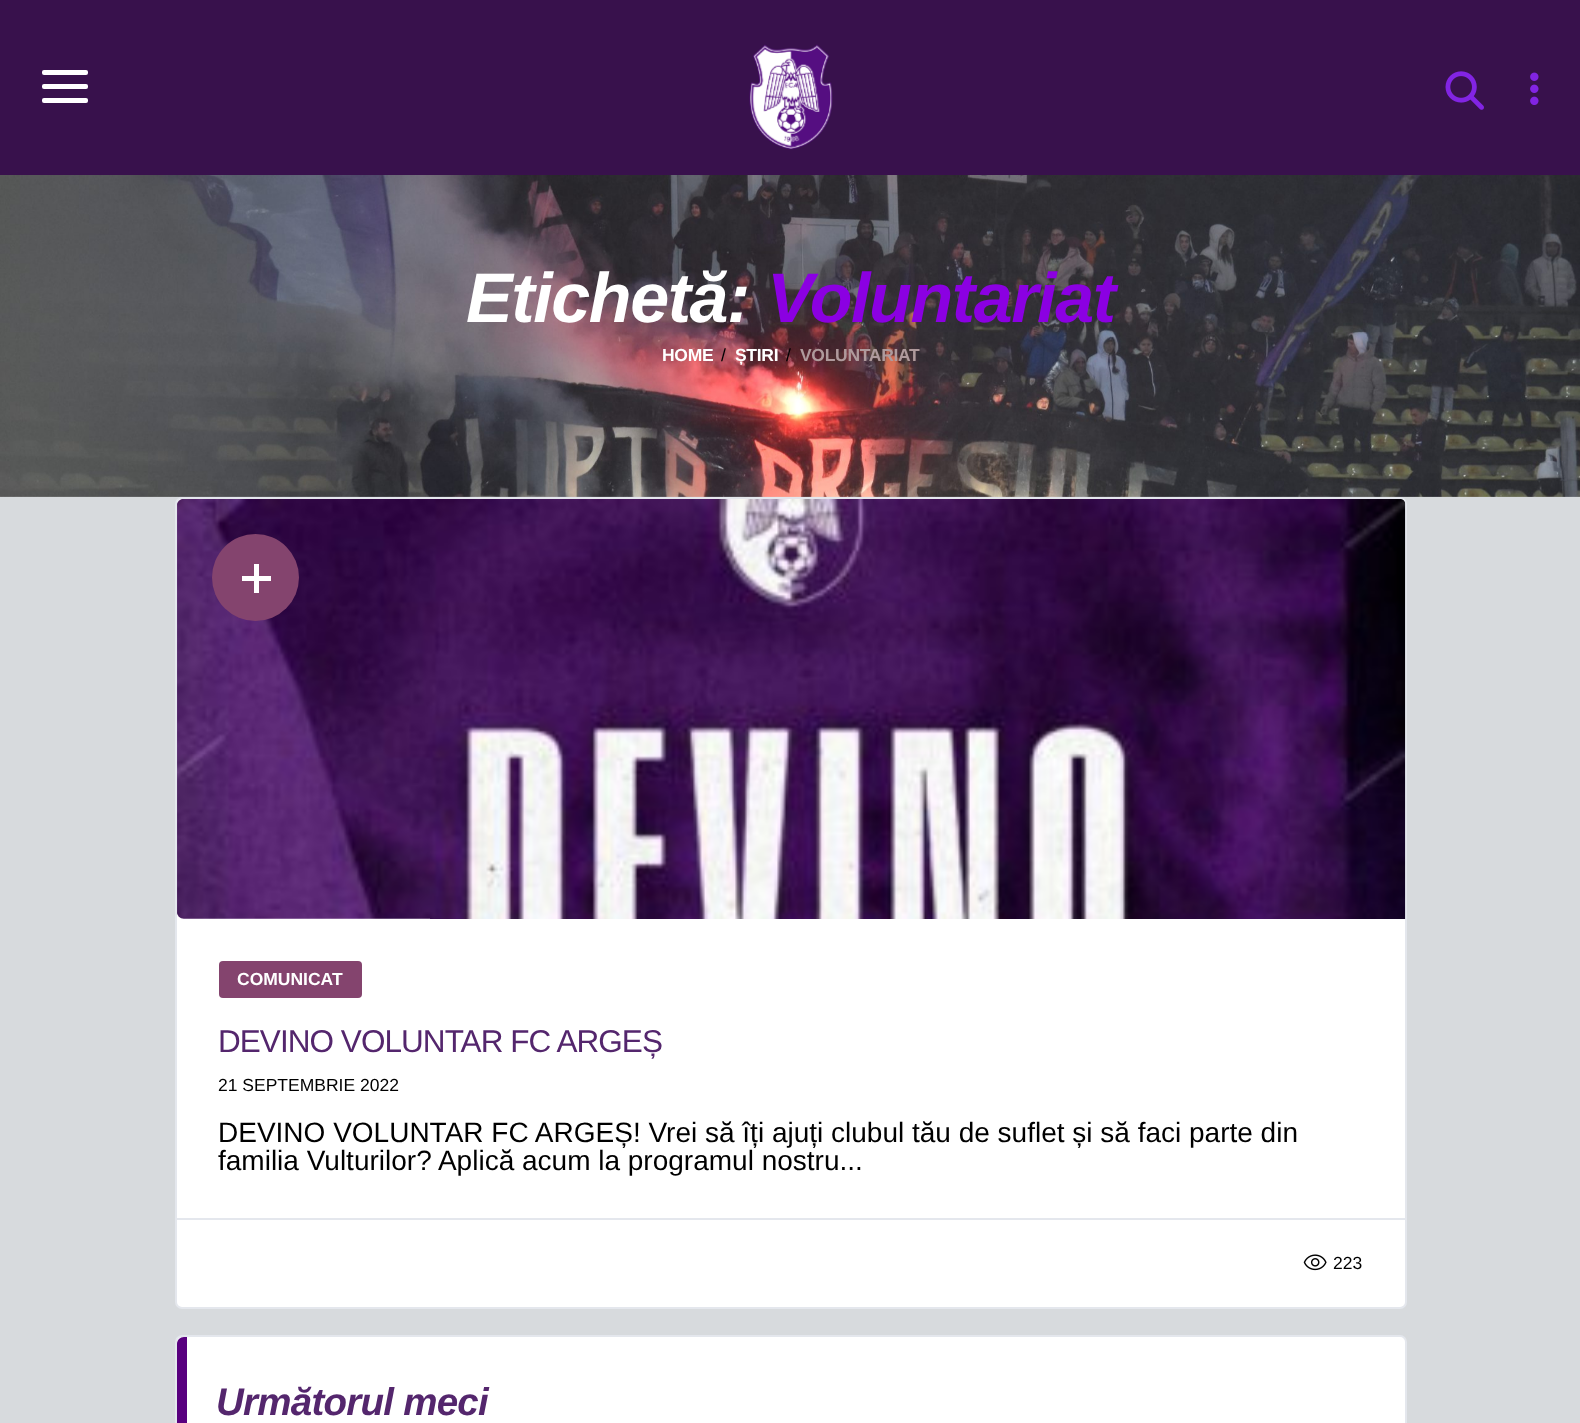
<!DOCTYPE html>
<meta charset="utf-8">
<style>body { margin: 0 } canvas { display: block }</style>
<canvas id="canvas" width="1580" height="1423"></canvas>
<img id="img1" src="img_01.png" hidden>
<img id="img2" src="img_02.png" hidden>
<img id="img3" src="img_03.png" hidden>
<img id="img4" src="img_04.png" hidden>
<img id="img5" src="img_05.png" hidden>
<img id="img6" src="img_06.png" hidden>
<script>
window.onload = function () {
	const canvas = document.getElementById("canvas");
	const ctx = canvas.getContext("2d");
	ctx.miterLimit = 4;
	ctx.fontKerning = "normal";
	function txt(s, x, y) {
		ctx.fillText(s, x, y);
	}
	function fill(x, y, w, h) {
		ctx.fillRect(x, y, w, h);
	}
	function round(x, y, w, h, r) {
		ctx.beginPath();
		ctx.roundRect(x, y, w, h, r);
		ctx.fill();
	}
	function img(id, x, y, w, h) {
		ctx.drawImage(document.getElementById(id), x, y, w, h);
	}

	ctx.fillStyle = "#D7DADD";
	fill(0, 0, 1580, 1423);
	ctx.fillStyle = "#38114C";
	fill(0, 0, 1580, 175);
	img("img1", 749, 44, 84, 106);
	ctx.fillStyle = "#FFFFFF";
	round(42, 70, 46, 5, 2);
	round(42, 84, 46, 5, 2);
	round(42, 98, 46, 5, 2);
	img("img2", 1445, 71, 39, 39);
	img("img3", 1530, 72, 9, 33);
	img("img4", 0, 175, 1580, 322);
	ctx.beginPath();
	ctx.roundRect(176, 498, 1230, 810, 6);
	ctx.fill();
	ctx.strokeStyle = "#E4E7ED";
	ctx.lineWidth = 2;
	ctx.stroke();
	img("img5", 177, 499, 1229, 420);
	ctx.fillStyle = "#84446E";
	ctx.beginPath();
	ctx.arc(255.5, 577.5, 43.5, 0, Math.PI * 2);
	ctx.fill();
	ctx.fillStyle = "#FFFFFF";
	fill(242, 576, 29, 5);
	fill(254, 564, 5, 29);
	ctx.fillStyle = "#84446E";
	round(219, 961, 143, 37, 4);
	ctx.fillStyle = "#E4E7ED";
	fill(177, 1218, 1228, 2);
	img("img6", 1303, 1254, 24, 17);
	ctx.fillStyle = "#FFFFFF";
	ctx.beginPath();
	ctx.roundRect(176, 1336, 1230, 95, 6);
	ctx.fill();
	ctx.stroke();
	ctx.fillStyle = "#59007F";
	ctx.beginPath();
	ctx.moveTo(184, 1337);
	ctx.lineTo(187, 1337);
	ctx.lineTo(187, 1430);
	ctx.lineTo(177, 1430);
	ctx.lineTo(177, 1344);
	ctx.bezierCurveTo(177, 1340, 180, 1337, 184, 1337);
	ctx.closePath();
	ctx.fill();
	ctx.letterSpacing = "-1.4px";
	ctx.font = "italic bold 70px Liberation Sans";
	ctx.fillStyle = "#FFFFFF";
	txt("Etichetă:", 466, 322);
	ctx.fillStyle = "#8B00E2";
	txt("Voluntariat", 767, 322);
	ctx.letterSpacing = "-0.3px";
	ctx.font = "bold 17.5px Liberation Sans";
	ctx.fillStyle = "#FFFFFF";
	txt("HOME", 662, 361);
	ctx.font = "17.5px Liberation Sans";
	ctx.fillStyle = "#000000";
	txt("/", 721, 361);
	ctx.font = "bold 17.5px Liberation Sans";
	ctx.fillStyle = "#FFFFFF";
	txt("ȘTIRI", 735, 361);
	ctx.font = "17.5px Liberation Sans";
	ctx.fillStyle = "#000000";
	txt("/", 786, 361);
	ctx.font = "bold 17.5px Liberation Sans";
	ctx.fillStyle = "#AF9A9C";
	txt("VOLUNTARIAT", 800, 361);
	ctx.letterSpacing = "0px";
	ctx.fillStyle = "#FFFFFF";
	txt("COMUNICAT", 237, 985);
	ctx.letterSpacing = "-0.95px";
	ctx.font = "31.5px Liberation Sans";
	ctx.fillStyle = "#54266D";
	txt("DEVINO VOLUNTAR FC ARGEȘ", 218, 1052);
	ctx.letterSpacing = "0px";
	ctx.font = "17.5px Liberation Sans";
	ctx.fillStyle = "#000000";
	txt("21 SEPTEMBRIE 2022", 218, 1091);
	ctx.font = "28px Liberation Sans";
	txt("DEVINO VOLUNTAR FC ARGEȘ! Vrei să îți ajuți clubul tău de suflet și să faci parte din", 218, 1142);
	txt("familia Vulturilor? Aplică acum la programul nostru...", 218, 1170);
	ctx.font = "17.5px Liberation Sans";
	txt("223", 1333, 1269);
	ctx.letterSpacing = "-0.75px";
	ctx.font = "italic bold 38.5px Liberation Sans";
	ctx.fillStyle = "#54266D";
	txt("Următorul meci", 216, 1415);
};
</script>
